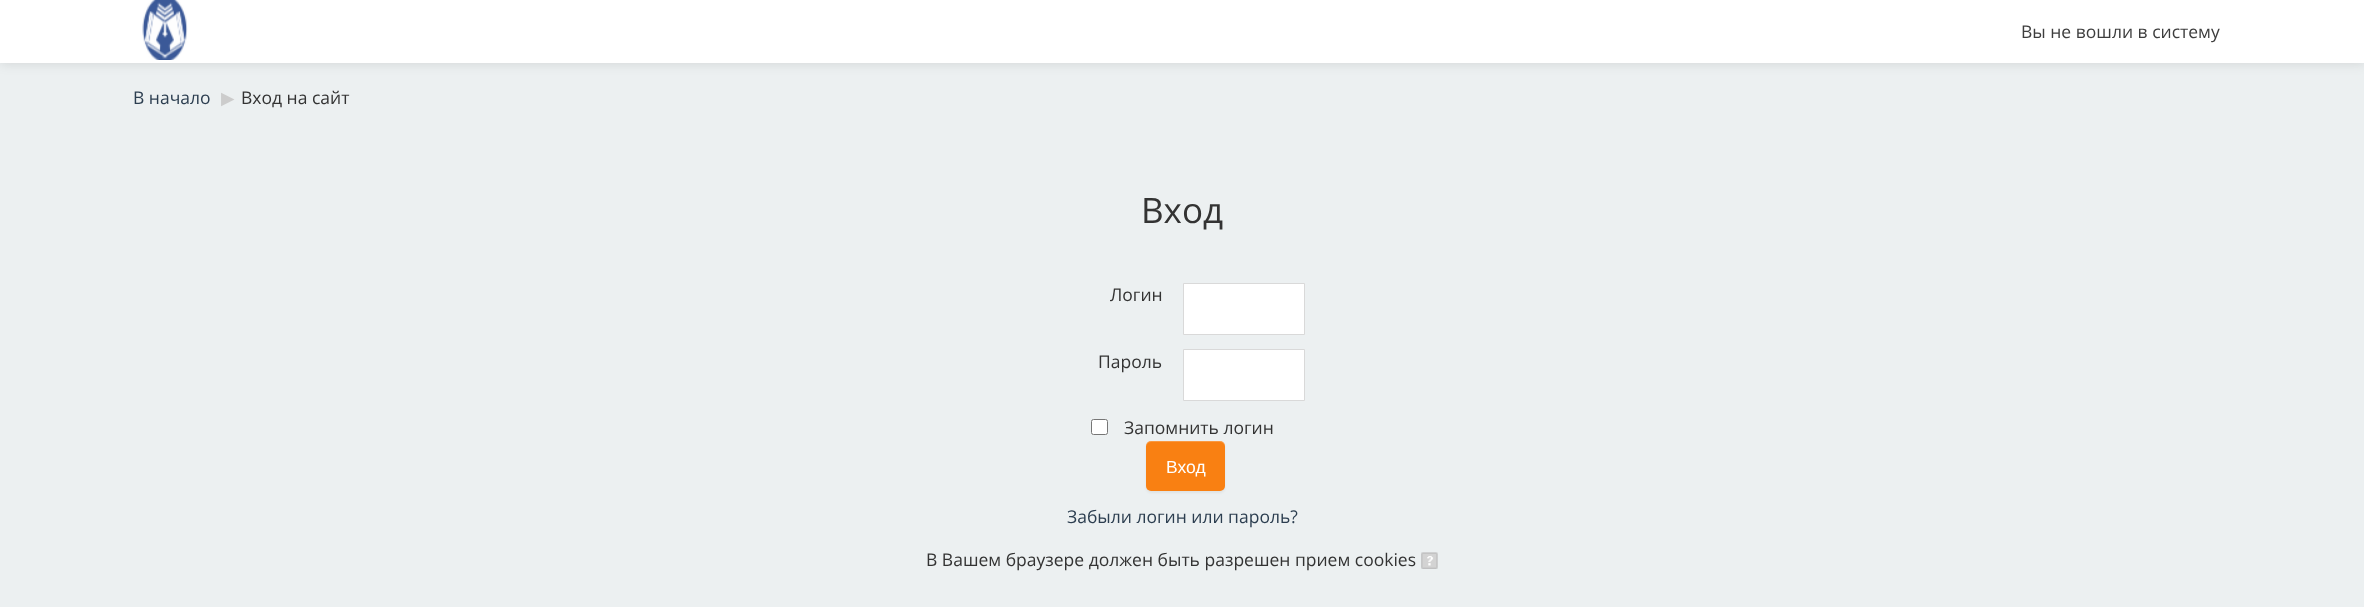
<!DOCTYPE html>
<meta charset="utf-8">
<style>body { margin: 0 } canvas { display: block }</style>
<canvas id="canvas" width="2364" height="607"></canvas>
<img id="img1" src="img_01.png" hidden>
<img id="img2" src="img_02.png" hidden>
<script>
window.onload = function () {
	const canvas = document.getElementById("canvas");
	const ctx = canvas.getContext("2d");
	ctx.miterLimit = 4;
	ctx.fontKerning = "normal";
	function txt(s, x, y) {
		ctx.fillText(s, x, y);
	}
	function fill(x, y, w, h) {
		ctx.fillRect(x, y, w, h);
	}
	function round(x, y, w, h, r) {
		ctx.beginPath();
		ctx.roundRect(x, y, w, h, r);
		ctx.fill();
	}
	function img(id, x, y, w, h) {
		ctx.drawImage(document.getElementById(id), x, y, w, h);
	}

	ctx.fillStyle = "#ECF0F1";
	fill(0, 0, 2364, 607);
	ctx.fillStyle = "rgba(0, 0, 0, 0.1)";
	ctx.filter = "blur(6px)";
	ctx.beginPath();
	ctx.rect(0, 1, 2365, 63);
	ctx.fill();
	ctx.filter = "none";
	ctx.fillStyle = "#FFFFFF";
	fill(0, 0, 2364, 63);
	img("img1", 142, 0, 46, 60);
	ctx.beginPath();
	ctx.rect(1183.5, 283.5, 121, 51);
	ctx.fill();
	ctx.strokeStyle = "#D9D9D9";
	ctx.stroke();
	ctx.beginPath();
	ctx.rect(1183.5, 349.5, 121, 51);
	ctx.fill();
	ctx.stroke();
	ctx.beginPath();
	ctx.roundRect(1091.5, 419.5, 16, 15, 2);
	ctx.fill();
	ctx.strokeStyle = "#767676";
	ctx.stroke();
	ctx.fillStyle = "rgba(0, 0, 0, 0.05)";
	ctx.filter = "blur(1px)";
	ctx.beginPath();
	ctx.roundRect(1146, 443, 79, 50, 5);
	ctx.fill();
	ctx.filter = "none";
	ctx.fillStyle = "#F98012";
	round(1146, 441, 79, 50, 5);
	ctx.fillStyle = "rgba(255, 255, 255, 0.2)";
	ctx.beginPath();
	ctx.moveTo(1151, 442);
	ctx.lineTo(1220, 442);
	ctx.bezierCurveTo(1223, 442, 1225, 445, 1225, 448);
	ctx.bezierCurveTo(1225, 438, 1217, 441, 1208, 441);
	ctx.lineTo(1162, 441);
	ctx.bezierCurveTo(1154, 441, 1146, 438, 1146, 448);
	ctx.bezierCurveTo(1146, 445, 1148, 442, 1151, 442);
	ctx.closePath();
	ctx.fill();
	img("img2", 1421, 552, 17, 17);
	ctx.font = "17.5px Open Sans";
	ctx.fillStyle = "#3D3D3D";
	txt("Вы не вошли в систему", 2021, 38);
	ctx.fillStyle = "#2C3E50";
	txt("В начало", 133, 104);
	ctx.font = "17.5px DejaVu Sans";
	ctx.fillStyle = "#CCCCCC";
	txt("▶︎", 221, 104);
	ctx.font = "17.5px Open Sans";
	ctx.fillStyle = "#333333";
	txt("Вход на сайт", 241, 104);
	ctx.font = "35px Open Sans";
	txt("Вход", 1141, 223);
	ctx.font = "17.5px Open Sans";
	txt("Логин", 1110, 301);
	txt("Пароль", 1098, 368);
	txt("Запомнить логин", 1124, 434);
	ctx.font = "17.5px Liberation Sans";
	ctx.fillStyle = "#FFFFFF";
	txt("Вход", 1166, 473);
	ctx.font = "17.5px Open Sans";
	ctx.fillStyle = "#2C3E50";
	txt("Забыли логин или пароль?", 1067, 523);
	ctx.fillStyle = "#333333";
	txt("В Вашем браузере должен быть разрешен прием cookies", 926, 566);
};
</script>
